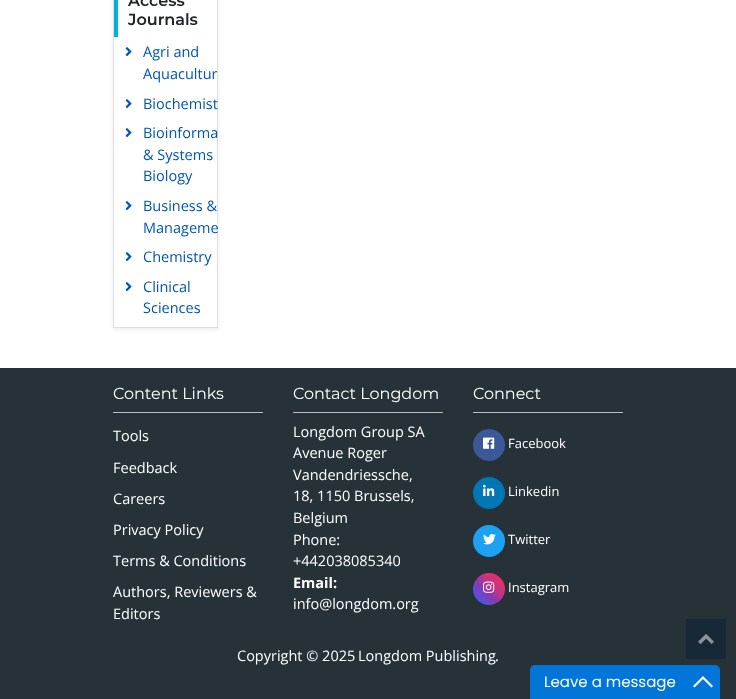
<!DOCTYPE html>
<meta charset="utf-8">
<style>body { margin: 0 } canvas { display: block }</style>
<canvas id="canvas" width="736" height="699"></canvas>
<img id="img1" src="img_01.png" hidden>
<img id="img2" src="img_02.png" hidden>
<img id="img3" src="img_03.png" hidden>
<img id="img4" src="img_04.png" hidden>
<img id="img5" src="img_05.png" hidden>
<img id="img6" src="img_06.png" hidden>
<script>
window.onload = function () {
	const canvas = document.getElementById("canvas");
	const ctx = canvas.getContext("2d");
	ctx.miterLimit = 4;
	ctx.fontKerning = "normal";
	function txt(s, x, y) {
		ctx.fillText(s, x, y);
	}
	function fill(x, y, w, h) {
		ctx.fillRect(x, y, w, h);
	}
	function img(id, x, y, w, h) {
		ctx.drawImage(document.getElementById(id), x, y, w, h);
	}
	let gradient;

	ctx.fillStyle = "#FFFFFF";
	fill(0, 0, 736, 699);
	ctx.save();
	ctx.beginPath();
	ctx.moveTo(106, 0);
	ctx.lineTo(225, 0);
	ctx.lineTo(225, 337);
	ctx.lineTo(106, 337);
	ctx.closePath();
	ctx.moveTo(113, -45);
	ctx.lineTo(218, -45);
	ctx.lineTo(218, 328);
	ctx.lineTo(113, 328);
	ctx.closePath();
	ctx.clip("evenodd");
	ctx.fillStyle = "rgba(0, 0, 0, 0.07)";
	ctx.filter = "blur(2px)";
	ctx.beginPath();
	ctx.rect(113, -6, 105, 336);
	ctx.fill();
	ctx.filter = "none";
	ctx.restore();
	ctx.strokeStyle = "#DFDFDF";
	ctx.strokeRect(113.5, -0.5, 104, 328);
	ctx.fillStyle = "#00B1E4";
	fill(114, 0, 4, 37);
	img("img1", 125, 47, 7, 9);
	img("img1", 125, 99, 7, 9);
	img("img1", 125, 128, 7, 9);
	img("img1", 125, 201, 7, 9);
	img("img1", 125, 252, 7, 9);
	img("img1", 125, 282, 7, 9);
	ctx.fillStyle = "#263238";
	fill(0, 368, 736, 331);
	ctx.fillStyle = "#BDBDBD";
	fill(113, 412, 150, 1);
	fill(293, 412, 150, 1);
	fill(473, 412, 150, 1);
	ctx.fillStyle = "#3B5998";
	ctx.beginPath();
	ctx.arc(489, 445, 16, 0, Math.PI * 2);
	ctx.fill();
	img("img2", 483, 437, 12, 12);
	ctx.fillStyle = "#0077B5";
	ctx.beginPath();
	ctx.arc(489, 493, 16, 0, Math.PI * 2);
	ctx.fill();
	img("img3", 483, 484, 12, 12);
	ctx.fillStyle = "#1DA1F2";
	ctx.beginPath();
	ctx.arc(489, 541, 16, 0, Math.PI * 2);
	ctx.fill();
	img("img4", 483, 534, 13, 11);
	gradient = ctx.createLinearGradient(473, 605, 505, 573);
	gradient.addColorStop(0, "#405DE6");
	gradient.addColorStop(0.2, "#5851DB");
	gradient.addColorStop(0.4, "#833AB4");
	gradient.addColorStop(0.6, "#C13584");
	gradient.addColorStop(0.8, "#E1306C");
	gradient.addColorStop(1, "#FD1D1D");
	ctx.fillStyle = gradient;
	ctx.beginPath();
	ctx.arc(489, 589, 16, 0, Math.PI * 2);
	ctx.fill();
	img("img5", 483, 581, 12, 12);
	ctx.fillStyle = "#172836";
	fill(686, 619, 40, 40);
	img("img6", 698, 634, 16, 10);
	ctx.fillStyle = "#0275D8";
	ctx.beginPath();
	ctx.roundRect(530, 665, 190, 34, [5, 5, 0, 0]);
	ctx.fill();
	ctx.fillStyle = "#FFFFFF";
	ctx.beginPath();
	ctx.moveTo(703, 676);
	ctx.lineTo(713, 686);
	ctx.lineTo(711.5, 687.5);
	ctx.lineTo(703, 679);
	ctx.lineTo(694.5, 687.5);
	ctx.lineTo(693, 686);
	ctx.closePath();
	ctx.fill();
	ctx.font = "600 16px Montserrat";
	ctx.fillStyle = "#212529";
	txt("Access", 128, 6);
	txt("Journals", 128, 25);
	ctx.font = "14.5px Open Sans";
	ctx.fillStyle = "#0056B3";
	txt("Agri and", 143, 57);
	txt("Aquacultur", 143, 79);
	txt("Biochemist", 143, 109);
	txt("Bioinforma", 143, 138);
	txt("& Systems", 143, 160);
	txt("Biology", 143, 181);
	txt("Business &", 143, 211);
	txt("Manageme", 143, 233);
	txt("Chemistry", 143, 262);
	txt("Clinical", 143, 292);
	txt("Sciences", 143, 313);
	ctx.font = "16px Montserrat";
	ctx.fillStyle = "#FFFFFF";
	txt("Content Links", 113, 399);
	ctx.font = "14.5px Open Sans";
	txt("Tools", 113, 441);
	txt("Feedback", 113, 473);
	txt("Careers", 113, 504);
	txt("Privacy Policy", 113, 535);
	txt("Terms & Conditions", 113, 566);
	txt("Authors, Reviewers &", 113, 597);
	txt("Editors", 113, 619);
	ctx.font = "16px Montserrat";
	txt("Contact Longdom", 293, 399);
	ctx.font = "14.5px Open Sans";
	txt("Longdom Group SA", 293, 437);
	txt("Avenue Roger", 293, 458);
	txt("Vandendriessche,", 293, 480);
	txt("18, 1150 Brussels,", 293, 501);
	txt("Belgium", 293, 523);
	txt("Phone:", 293, 545);
	txt("+442038085340", 293, 566);
	ctx.font = "bold 14.5px Open Sans";
	txt("Email:", 293, 588);
	ctx.font = "14.5px Open Sans";
	txt("info@longdom.org", 293, 609);
	ctx.font = "16px Montserrat";
	txt("Connect", 473, 399);
	ctx.font = "13px Open Sans";
	txt("Facebook", 508, 448);
	txt("Linkedin", 508, 496);
	txt("Twitter", 508, 544);
	txt("Instagram", 508, 592);
	ctx.font = "14.5px Open Sans";
	txt("Copyright © 2025", 237, 661);
	txt("Longdom Publishing", 358, 661);
	txt(".", 495, 661);
	ctx.font = "15px Poppins";
	txt("Leave a message", 544, 687);
};
</script>
